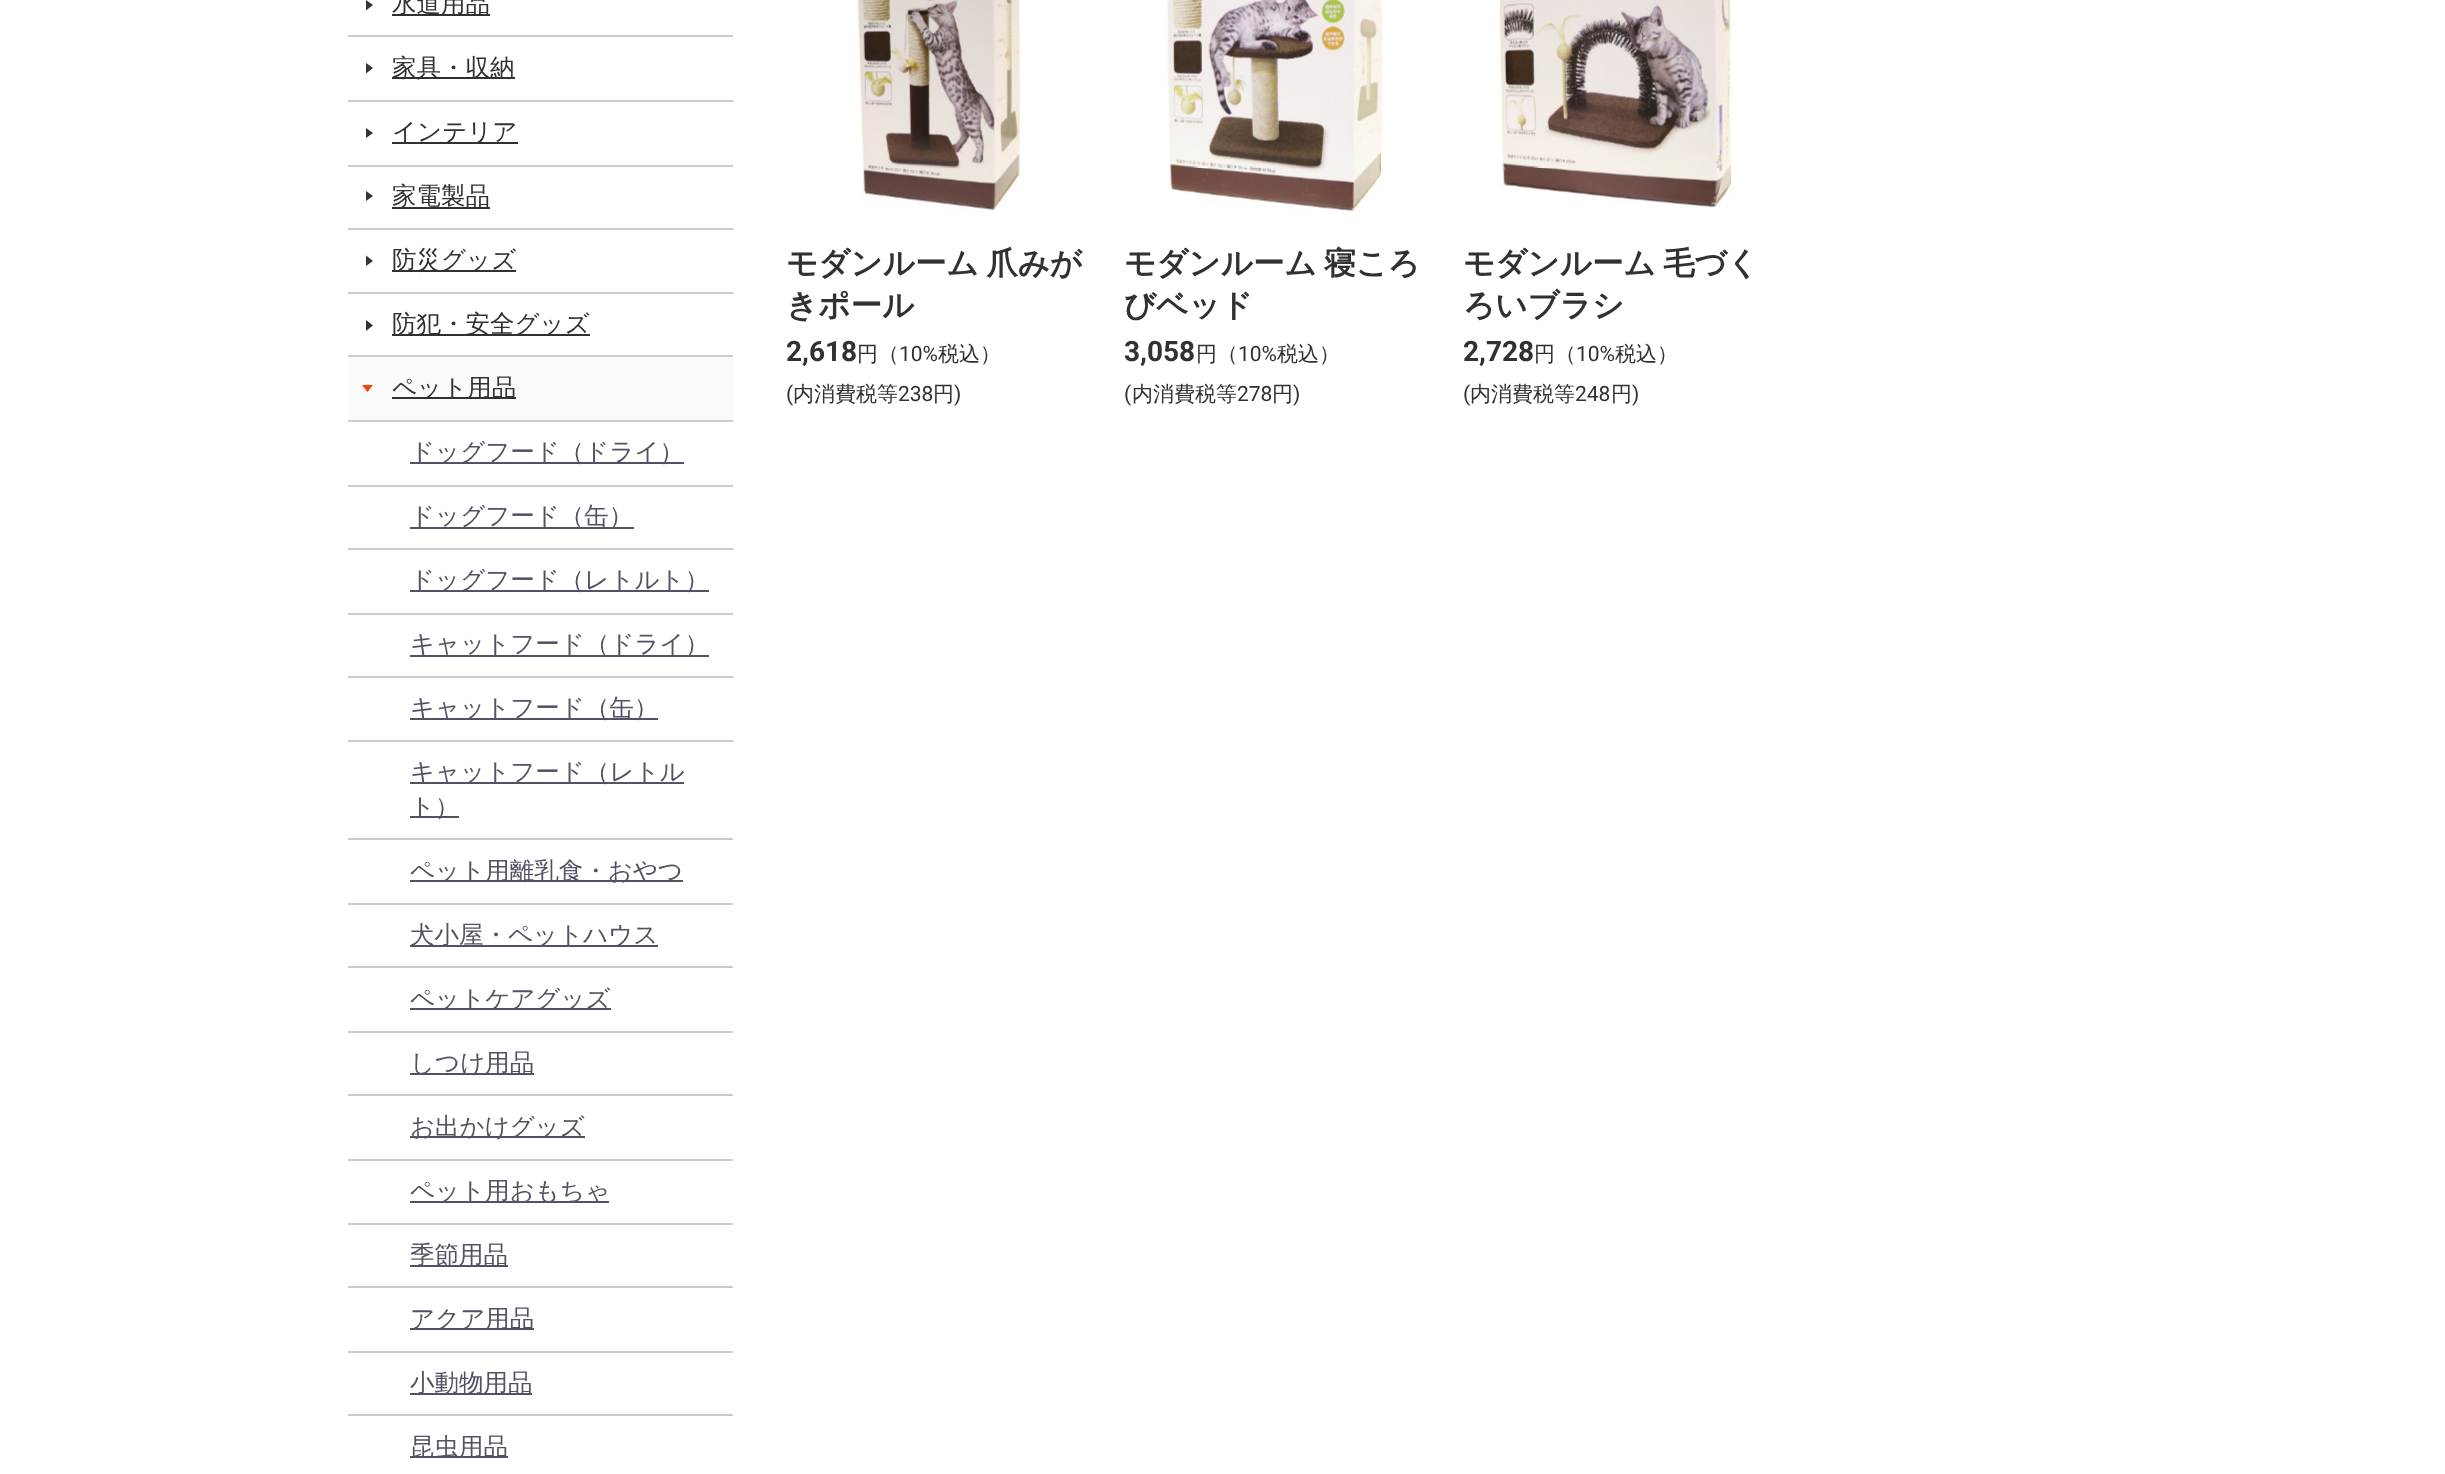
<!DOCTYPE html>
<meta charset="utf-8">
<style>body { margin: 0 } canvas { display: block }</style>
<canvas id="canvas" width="2445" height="1474"></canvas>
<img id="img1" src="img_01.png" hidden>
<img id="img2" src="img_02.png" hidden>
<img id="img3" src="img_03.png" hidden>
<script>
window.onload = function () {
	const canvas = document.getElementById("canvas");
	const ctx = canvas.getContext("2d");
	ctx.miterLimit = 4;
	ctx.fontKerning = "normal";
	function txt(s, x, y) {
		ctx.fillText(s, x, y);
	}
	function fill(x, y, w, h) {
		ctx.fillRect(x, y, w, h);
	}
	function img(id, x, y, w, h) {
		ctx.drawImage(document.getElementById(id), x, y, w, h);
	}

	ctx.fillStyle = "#FFFFFF";
	fill(0, 0, 2445, 1474);
	ctx.fillStyle = "#CCCCCC";
	fill(348, 35, 385, 2);
	ctx.fillStyle = "#333333";
	ctx.beginPath();
	ctx.moveTo(366, 10.5);
	ctx.lineTo(366, 0);
	ctx.lineTo(373, 5);
	ctx.closePath();
	ctx.fill();
	ctx.fillStyle = "#2E3233";
	fill(392, 14, 98, 2);
	ctx.fillStyle = "#CCCCCC";
	fill(348, 100, 385, 2);
	ctx.fillStyle = "#333333";
	ctx.beginPath();
	ctx.moveTo(366, 73.5);
	ctx.lineTo(366, 63);
	ctx.lineTo(373, 68);
	ctx.closePath();
	ctx.fill();
	ctx.fillStyle = "#2E3233";
	fill(392, 77, 123, 2);
	ctx.fillStyle = "#CCCCCC";
	fill(348, 165, 385, 2);
	ctx.fillStyle = "#333333";
	ctx.beginPath();
	ctx.moveTo(366, 138);
	ctx.lineTo(366, 128);
	ctx.lineTo(373, 133);
	ctx.closePath();
	ctx.fill();
	ctx.fillStyle = "#2E3233";
	fill(392, 142, 126, 2);
	ctx.fillStyle = "#CCCCCC";
	fill(348, 228, 385, 2);
	ctx.fillStyle = "#333333";
	ctx.beginPath();
	ctx.moveTo(366, 201);
	ctx.lineTo(366, 191);
	ctx.lineTo(373, 196);
	ctx.closePath();
	ctx.fill();
	ctx.fillStyle = "#2E3233";
	fill(392, 207, 98, 2);
	ctx.fillStyle = "#CCCCCC";
	fill(348, 292, 385, 2);
	ctx.fillStyle = "#333333";
	ctx.beginPath();
	ctx.moveTo(366, 266);
	ctx.lineTo(366, 255.5);
	ctx.lineTo(373, 261);
	ctx.closePath();
	ctx.fill();
	ctx.fillStyle = "#2E3233";
	fill(392, 270, 124, 2);
	ctx.fillStyle = "#CCCCCC";
	fill(348, 355, 385, 2);
	ctx.fillStyle = "#333333";
	ctx.beginPath();
	ctx.moveTo(366, 331);
	ctx.lineTo(366, 320);
	ctx.lineTo(373, 325.5);
	ctx.closePath();
	ctx.fill();
	ctx.fillStyle = "#2E3233";
	fill(392, 334, 198, 2);
	ctx.fillStyle = "#FAFAFA";
	fill(348, 357, 385, 63);
	ctx.fillStyle = "#CCCCCC";
	fill(348, 420, 385, 2);
	ctx.fillStyle = "#FF4000";
	ctx.beginPath();
	ctx.moveTo(362, 385);
	ctx.lineTo(373, 385);
	ctx.lineTo(367.5, 392);
	ctx.closePath();
	ctx.fill();
	ctx.fillStyle = "#2E3233";
	fill(392, 397, 124, 2);
	ctx.fillStyle = "#CCCCCC";
	fill(348, 485, 385, 2);
	ctx.fillStyle = "#525263";
	fill(410, 462, 274, 2);
	ctx.fillStyle = "#CCCCCC";
	fill(348, 548, 385, 2);
	ctx.fillStyle = "#525263";
	fill(410, 527, 224, 2);
	ctx.fillStyle = "#CCCCCC";
	fill(348, 613, 385, 2);
	ctx.fillStyle = "#525263";
	fill(410, 590, 299, 2);
	ctx.fillStyle = "#CCCCCC";
	fill(348, 676, 385, 2);
	ctx.fillStyle = "#525263";
	fill(410, 655, 299, 2);
	ctx.fillStyle = "#CCCCCC";
	fill(348, 740, 385, 2);
	ctx.fillStyle = "#525263";
	fill(410, 718, 248, 2);
	ctx.fillStyle = "#CCCCCC";
	fill(348, 838, 385, 2);
	ctx.fillStyle = "#525263";
	fill(410, 782, 274, 2);
	fill(410, 816, 49, 2);
	ctx.fillStyle = "#CCCCCC";
	fill(348, 903, 385, 2);
	ctx.fillStyle = "#525263";
	fill(410, 880, 273, 2);
	ctx.fillStyle = "#CCCCCC";
	fill(348, 966, 385, 2);
	ctx.fillStyle = "#525263";
	fill(410, 945, 248, 2);
	ctx.fillStyle = "#CCCCCC";
	fill(348, 1031, 385, 2);
	ctx.fillStyle = "#525263";
	fill(410, 1008, 201, 2);
	ctx.fillStyle = "#CCCCCC";
	fill(348, 1094, 385, 2);
	ctx.fillStyle = "#525263";
	fill(410, 1073, 124, 2);
	ctx.fillStyle = "#CCCCCC";
	fill(348, 1159, 385, 2);
	ctx.fillStyle = "#525263";
	fill(410, 1136, 175, 2);
	ctx.fillStyle = "#CCCCCC";
	fill(348, 1223, 385, 2);
	ctx.fillStyle = "#525263";
	fill(410, 1201, 199, 2);
	ctx.fillStyle = "#CCCCCC";
	fill(348, 1286, 385, 2);
	ctx.fillStyle = "#525263";
	fill(410, 1265, 98, 2);
	ctx.fillStyle = "#CCCCCC";
	fill(348, 1351, 385, 2);
	ctx.fillStyle = "#525263";
	fill(410, 1328, 124, 2);
	ctx.fillStyle = "#CCCCCC";
	fill(348, 1414, 385, 2);
	ctx.fillStyle = "#525263";
	fill(410, 1393, 122, 2);
	fill(410, 1456, 98, 2);
	img("img1", 857, 0, 167, 214);
	img("img2", 1166, 0, 218, 214);
	img("img3", 1499, 0, 235, 208);
	ctx.font = "500 24.5px WenQuanYi Zen Hei";
	ctx.fillStyle = "#2E3233";
	txt("水道用品", 392, 12);
	txt("家具・収納", 392, 76);
	txt("インテリア", 392, 140);
	txt("家電製品", 392, 204);
	txt("防災グッズ", 392, 268);
	txt("防犯・安全グッズ", 392, 332);
	txt("ペット用品", 392, 396);
	ctx.fillStyle = "#525263";
	txt("ドッグフード（ドライ）", 410, 460);
	txt("ドッグフード（缶）", 410, 524);
	txt("ドッグフード（レトルト）", 410, 588);
	txt("キャットフード（ドライ）", 410, 652);
	txt("キャットフード（缶）", 410, 716);
	txt("キャットフード（レトル", 410, 780);
	txt("ト）", 410, 815);
	txt("ペット用離乳食・おやつ", 410, 879);
	txt("犬小屋・ペットハウス", 410, 943);
	txt("ペットケアグッズ", 410, 1007);
	txt("しつけ用品", 410, 1071);
	txt("お出かけグッズ", 410, 1135);
	txt("ペット用おもちゃ", 410, 1199);
	txt("季節用品", 410, 1263);
	txt("アクア用品", 410, 1327);
	txt("小動物用品", 410, 1391);
	txt("昆虫用品", 410, 1455);
	ctx.wordSpacing = "-2px";
	ctx.font = "bold 31.5px WenQuanYi Zen Hei";
	ctx.fillStyle = "#2E3233";
	txt("モダンルーム 爪みが", 786, 274);
	ctx.wordSpacing = "0px";
	txt("きポール", 786, 316);
	ctx.font = "bold 28px Roboto";
	txt("2,618", 786, 361);
	ctx.font = "500 21px WenQuanYi Zen Hei";
	txt("円（", 857, 361);
	ctx.font = "21px Roboto";
	txt("10%", 899, 361);
	ctx.font = "500 21px WenQuanYi Zen Hei";
	txt("税込）", 938, 361);
	ctx.font = "21px Roboto";
	txt("(", 786, 401);
	ctx.font = "500 21px WenQuanYi Zen Hei";
	txt("内消費税等", 793, 401);
	ctx.font = "21px Roboto";
	txt("238", 898, 401);
	ctx.font = "500 21px WenQuanYi Zen Hei";
	txt("円", 933, 401);
	ctx.font = "21px Roboto";
	txt(")", 954, 401);
	ctx.wordSpacing = "-2px";
	ctx.font = "bold 31.5px WenQuanYi Zen Hei";
	txt("モダンルーム 寝ころ", 1124, 274);
	ctx.wordSpacing = "0px";
	txt("びベッド", 1124, 316);
	ctx.font = "bold 28px Roboto";
	txt("3,058", 1124, 361);
	ctx.font = "500 21px WenQuanYi Zen Hei";
	txt("円（", 1196, 361);
	ctx.font = "21px Roboto";
	txt("10%", 1238, 361);
	ctx.font = "500 21px WenQuanYi Zen Hei";
	txt("税込）", 1277, 361);
	ctx.font = "21px Roboto";
	txt("(", 1124, 401);
	ctx.font = "500 21px WenQuanYi Zen Hei";
	txt("内消費税等", 1132, 401);
	ctx.font = "21px Roboto";
	txt("278", 1237, 401);
	ctx.font = "500 21px WenQuanYi Zen Hei";
	txt("円", 1272, 401);
	ctx.font = "21px Roboto";
	txt(")", 1293, 401);
	ctx.wordSpacing = "-2px";
	ctx.font = "bold 31.5px WenQuanYi Zen Hei";
	txt("モダンルーム 毛づく", 1463, 274);
	ctx.wordSpacing = "0px";
	txt("ろいブラシ", 1463, 316);
	ctx.font = "bold 28px Roboto";
	txt("2,728", 1463, 361);
	ctx.font = "500 21px WenQuanYi Zen Hei";
	txt("円（", 1534, 361);
	ctx.font = "21px Roboto";
	txt("10%", 1576, 361);
	ctx.font = "500 21px WenQuanYi Zen Hei";
	txt("税込）", 1615, 361);
	ctx.font = "21px Roboto";
	txt("(", 1463, 401);
	ctx.font = "500 21px WenQuanYi Zen Hei";
	txt("内消費税等", 1470, 401);
	ctx.font = "21px Roboto";
	txt("248", 1575, 401);
	ctx.font = "500 21px WenQuanYi Zen Hei";
	txt("円", 1611, 401);
	ctx.font = "21px Roboto";
	txt(")", 1632, 401);
};
</script>
